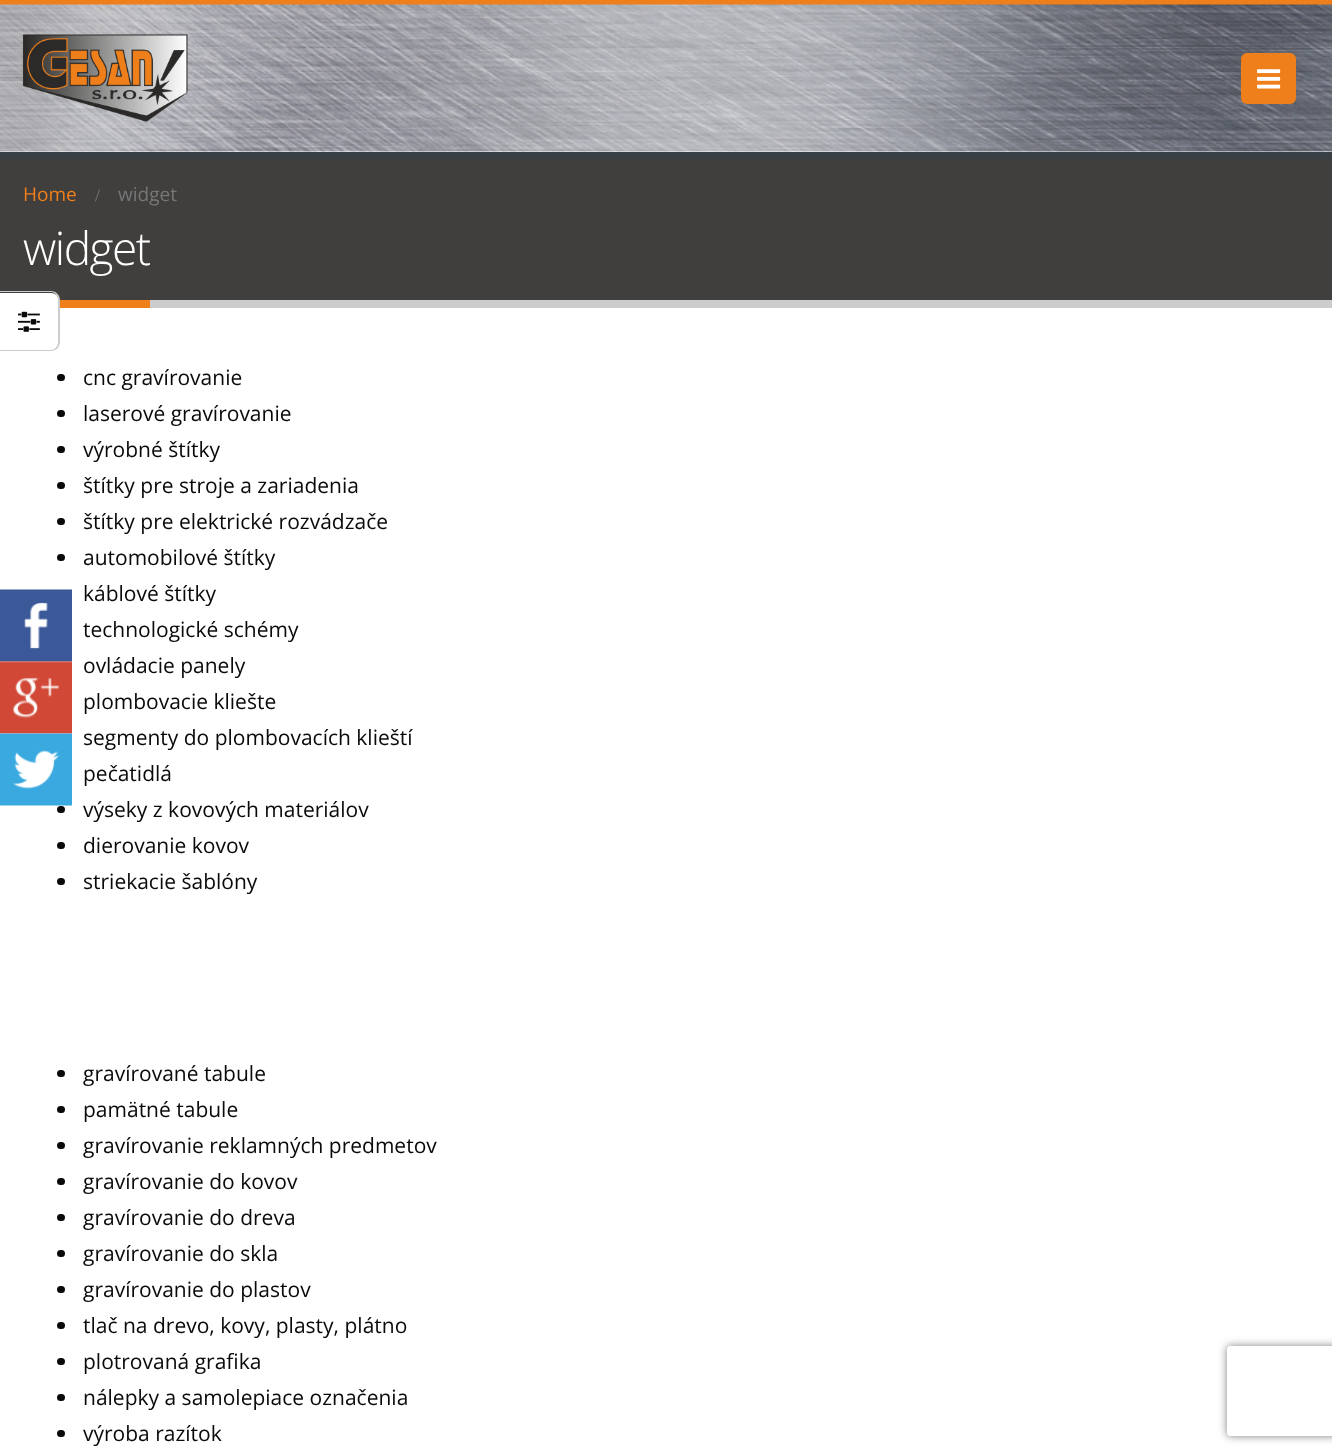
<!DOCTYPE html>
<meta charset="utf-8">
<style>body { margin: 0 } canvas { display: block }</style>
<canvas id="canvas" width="1332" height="1456"></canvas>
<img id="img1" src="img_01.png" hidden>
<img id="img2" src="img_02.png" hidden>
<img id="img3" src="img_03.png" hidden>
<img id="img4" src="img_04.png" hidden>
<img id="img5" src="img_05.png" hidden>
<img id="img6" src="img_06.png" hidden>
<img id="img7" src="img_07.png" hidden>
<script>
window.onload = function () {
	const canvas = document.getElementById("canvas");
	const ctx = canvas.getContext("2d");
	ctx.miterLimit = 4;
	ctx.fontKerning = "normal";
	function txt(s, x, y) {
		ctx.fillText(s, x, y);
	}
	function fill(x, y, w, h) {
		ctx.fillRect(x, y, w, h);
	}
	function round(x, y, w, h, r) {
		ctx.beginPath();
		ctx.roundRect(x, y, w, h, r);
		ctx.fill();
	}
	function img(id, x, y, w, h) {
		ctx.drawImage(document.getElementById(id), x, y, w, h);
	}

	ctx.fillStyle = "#FFFFFF";
	fill(0, 0, 1332, 1456);
	ctx.fillStyle = "#EF7F1A";
	fill(0, 0, 1332, 5);
	img("img1", 0, 4, 1332, 148);
	img("img2", 22, 34, 166, 88);
	round(1241, 53, 55, 51, 6);
	img("img3", 1257, 69, 24, 20);
	ctx.fillStyle = "#403F3E";
	fill(0, 159, 1332, 141);
	ctx.fillStyle = "#384045";
	fill(0, 152, 1332, 7);
	ctx.fillStyle = "#CCCCCC";
	fill(150, 300, 1182, 8);
	ctx.fillStyle = "#EF7F1A";
	fill(60, 300, 90, 8);
	ctx.fillStyle = "#FFFFFF";
	ctx.beginPath();
	ctx.roundRect(0, 293, 59, 57, [0, 8, 8, 0]);
	ctx.fill();
	ctx.fillStyle = "#CCCCCC";
	ctx.beginPath();
	ctx.moveTo(0, 291);
	ctx.lineTo(51, 291);
	ctx.bezierCurveTo(56, 291, 60, 295, 60, 300);
	ctx.lineTo(60, 342);
	ctx.bezierCurveTo(60, 347, 56, 351, 51, 351);
	ctx.lineTo(0, 351);
	ctx.closePath();
	ctx.moveTo(0, 292);
	ctx.lineTo(51, 292);
	ctx.bezierCurveTo(55, 292, 58, 296, 58, 300);
	ctx.lineTo(58, 342);
	ctx.bezierCurveTo(58, 346, 55, 350, 51, 350);
	ctx.lineTo(0, 350);
	ctx.closePath();
	ctx.fill("evenodd");
	img("img4", 18, 311, 22, 21);
	img("img5", 0, 589, 72, 73);
	img("img6", 0, 661, 72, 73);
	img("img7", 0, 733, 72, 73);
	ctx.fillStyle = "#0A0A0A";
	round(57, 374, 8, 7, 3.5);
	round(57, 410, 8, 7, 3.5);
	round(57, 446, 8, 7, 3.5);
	round(57, 482, 8, 7, 3.5);
	round(57, 518, 8, 7, 3.5);
	round(57, 554, 8, 7, 3.5);
	round(57, 806, 8, 7, 3.5);
	round(57, 842, 8, 7, 3.5);
	round(57, 878, 8, 7, 3.5);
	round(57, 1070, 8, 7, 3.5);
	round(57, 1106, 8, 7, 3.5);
	round(57, 1142, 8, 7, 3.5);
	round(57, 1178, 8, 7, 3.5);
	round(57, 1214, 8, 7, 3.5);
	round(57, 1250, 8, 7, 3.5);
	round(57, 1286, 8, 7, 3.5);
	round(57, 1322, 8, 7, 3.5);
	round(57, 1358, 8, 7, 3.5);
	round(57, 1394, 8, 7, 3.5);
	round(57, 1430, 8, 7, 3.5);
	ctx.save();
	ctx.beginPath();
	ctx.moveTo(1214, 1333);
	ctx.lineTo(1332, 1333);
	ctx.lineTo(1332, 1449);
	ctx.lineTo(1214, 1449);
	ctx.closePath();
	ctx.moveTo(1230, 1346);
	ctx.lineTo(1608, 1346);
	ctx.bezierCurveTo(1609.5, 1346, 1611, 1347.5, 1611, 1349);
	ctx.lineTo(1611, 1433);
	ctx.bezierCurveTo(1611, 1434.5, 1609.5, 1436, 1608, 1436);
	ctx.lineTo(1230, 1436);
	ctx.bezierCurveTo(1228.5, 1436, 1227, 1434.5, 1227, 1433);
	ctx.lineTo(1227, 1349);
	ctx.bezierCurveTo(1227, 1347.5, 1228.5, 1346, 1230, 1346);
	ctx.closePath();
	ctx.clip("evenodd");
	ctx.fillStyle = "#808080";
	ctx.filter = "blur(4px)";
	ctx.beginPath();
	ctx.roundRect(1227, 1346, 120, 90, 3);
	ctx.fill();
	ctx.filter = "none";
	ctx.restore();
	ctx.font = "19px Open Sans";
	ctx.fillStyle = "#EF7F1A";
	txt("Home", 23, 201);
	ctx.font = "18px Liberation Serif";
	ctx.fillStyle = "#777777";
	txt("/", 95, 201);
	ctx.font = "19px Open Sans";
	txt("widget", 118, 201);
	ctx.letterSpacing = "-1.5px";
	ctx.font = "300 46px Open Sans";
	ctx.fillStyle = "#FFFFFF";
	txt("widget", 23, 265);
	ctx.letterSpacing = "0px";
	ctx.font = "21px Open Sans";
	ctx.fillStyle = "#0A0A0A";
	txt("cnc gravírovanie", 83, 385);
	txt("laserové gravírovanie", 83, 421);
	txt("výrobné štítky", 83, 457);
	txt("štítky pre stroje a zariadenia", 83, 493);
	txt("štítky pre elektrické rozvádzače", 83, 529);
	txt("automobilové štítky", 83, 565);
	txt("káblové štítky", 83, 601);
	txt("technologické schémy", 83, 637);
	txt("ovládacie panely", 83, 673);
	txt("plombovacie kliešte", 83, 709);
	txt("segmenty do plombovacích klieští", 83, 745);
	txt("pečatidlá", 83, 781);
	txt("výseky z kovových materiálov", 83, 817);
	txt("dierovanie kovov", 83, 853);
	txt("striekacie šablóny", 83, 889);
	txt("gravírované tabule", 83, 1081);
	txt("pamätné tabule", 83, 1117);
	txt("gravírovanie reklamných predmetov", 83, 1153);
	txt("gravírovanie do kovov", 83, 1189);
	txt("gravírovanie do dreva", 83, 1225);
	txt("gravírovanie do skla", 83, 1261);
	txt("gravírovanie do plastov", 83, 1297);
	txt("tlač na drevo, kovy, plasty, plátno", 83, 1333);
	txt("plotrovaná grafika", 83, 1369);
	txt("nálepky a samolepiace označenia", 83, 1405);
	txt("výroba razítok", 83, 1441);
};
</script>
